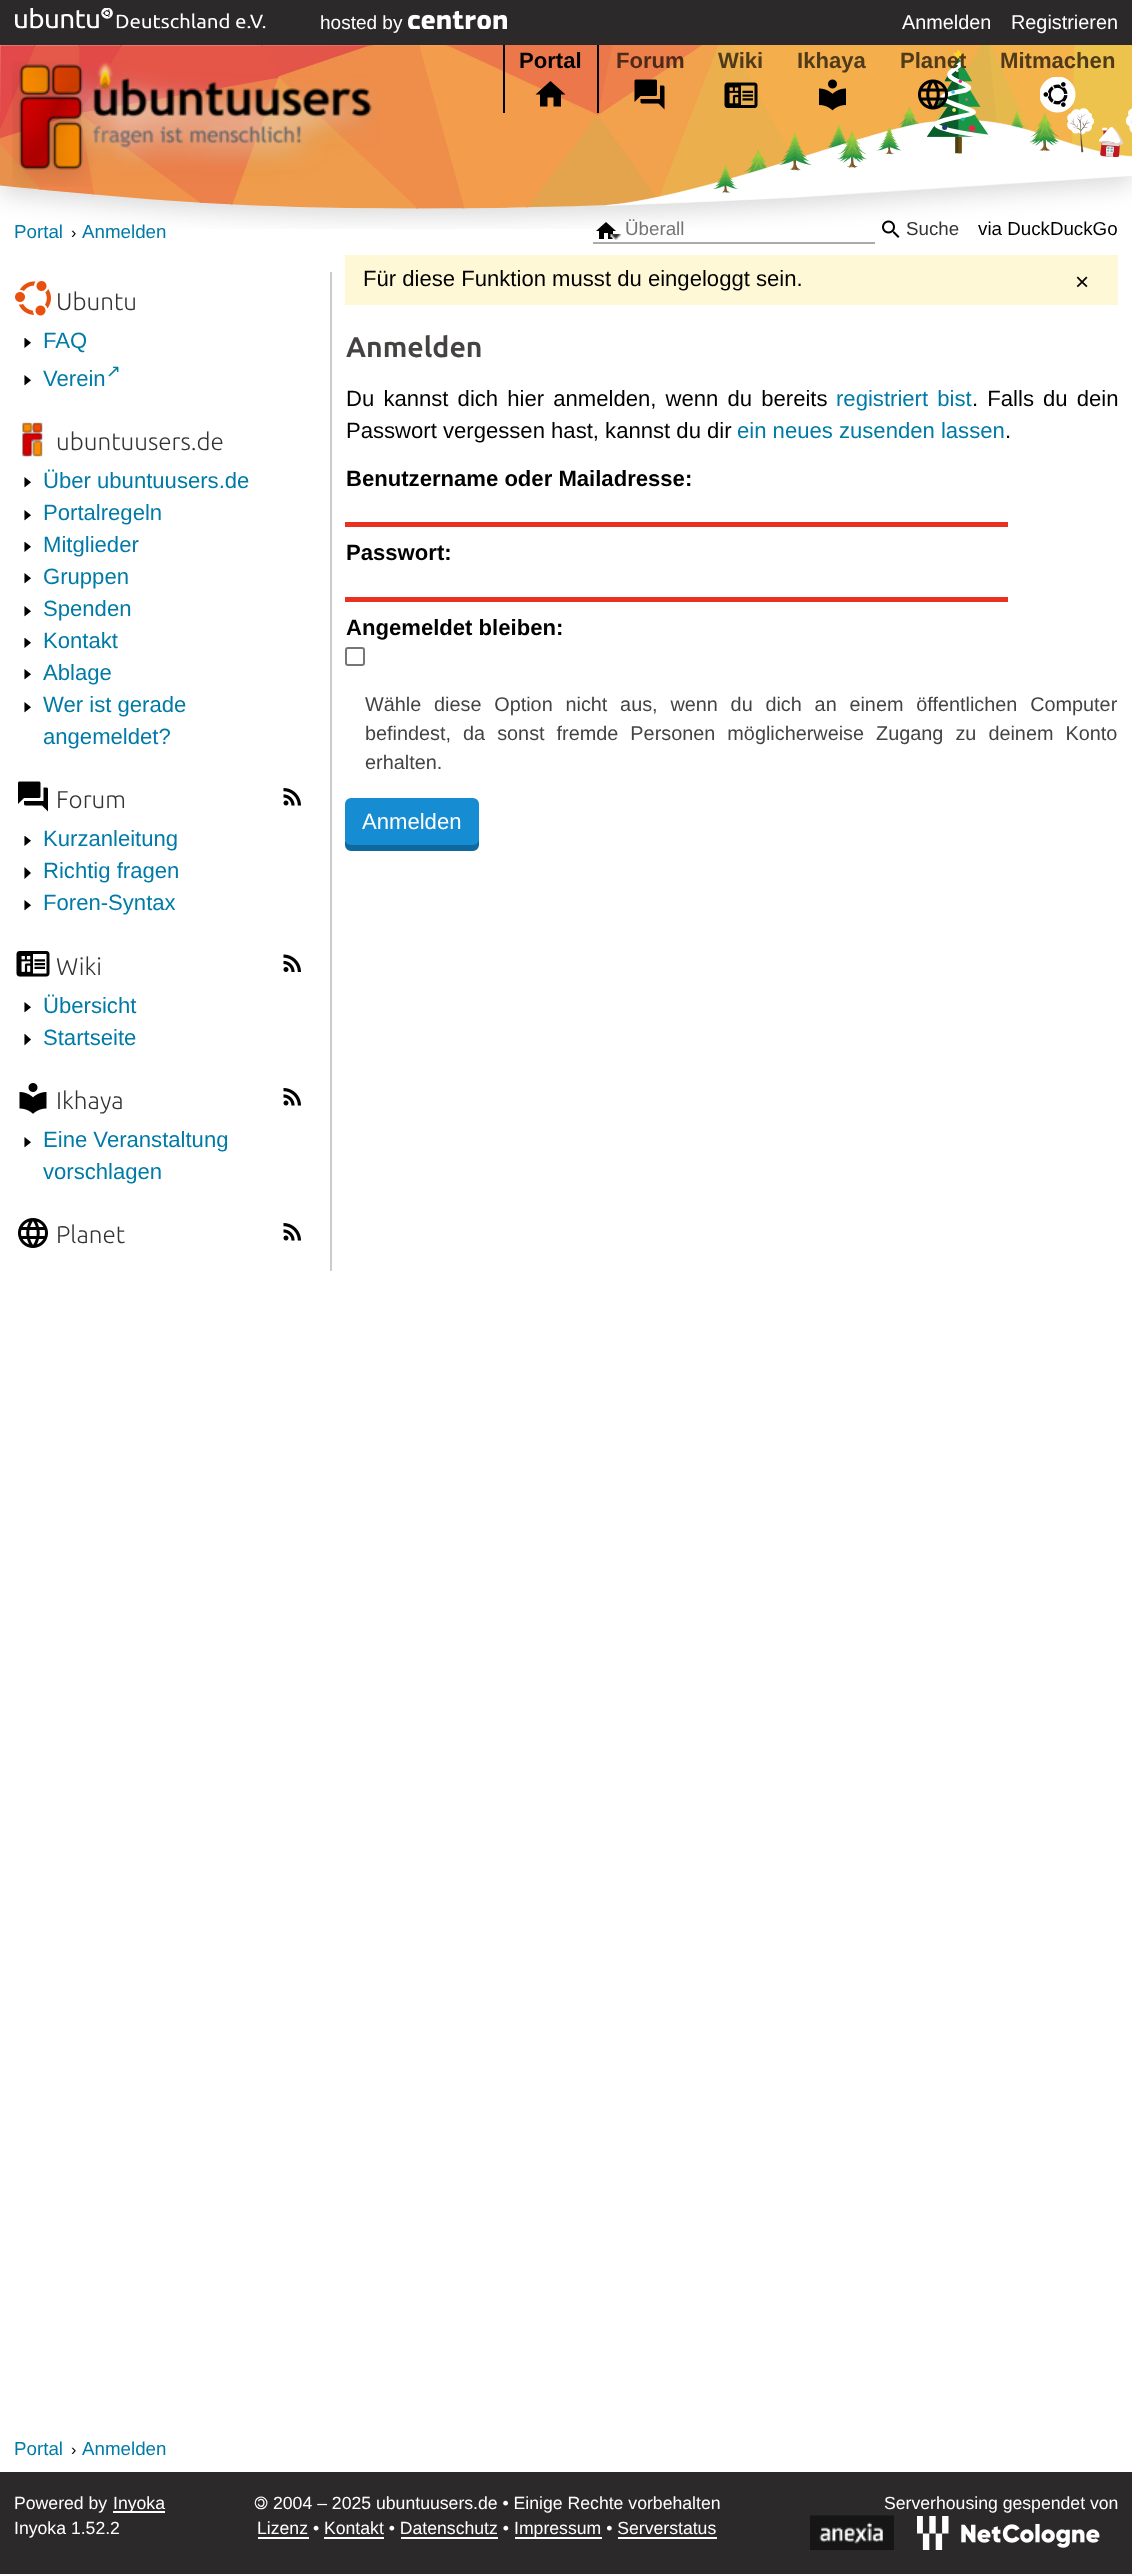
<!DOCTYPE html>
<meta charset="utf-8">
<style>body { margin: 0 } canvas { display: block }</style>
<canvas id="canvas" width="1132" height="2574"></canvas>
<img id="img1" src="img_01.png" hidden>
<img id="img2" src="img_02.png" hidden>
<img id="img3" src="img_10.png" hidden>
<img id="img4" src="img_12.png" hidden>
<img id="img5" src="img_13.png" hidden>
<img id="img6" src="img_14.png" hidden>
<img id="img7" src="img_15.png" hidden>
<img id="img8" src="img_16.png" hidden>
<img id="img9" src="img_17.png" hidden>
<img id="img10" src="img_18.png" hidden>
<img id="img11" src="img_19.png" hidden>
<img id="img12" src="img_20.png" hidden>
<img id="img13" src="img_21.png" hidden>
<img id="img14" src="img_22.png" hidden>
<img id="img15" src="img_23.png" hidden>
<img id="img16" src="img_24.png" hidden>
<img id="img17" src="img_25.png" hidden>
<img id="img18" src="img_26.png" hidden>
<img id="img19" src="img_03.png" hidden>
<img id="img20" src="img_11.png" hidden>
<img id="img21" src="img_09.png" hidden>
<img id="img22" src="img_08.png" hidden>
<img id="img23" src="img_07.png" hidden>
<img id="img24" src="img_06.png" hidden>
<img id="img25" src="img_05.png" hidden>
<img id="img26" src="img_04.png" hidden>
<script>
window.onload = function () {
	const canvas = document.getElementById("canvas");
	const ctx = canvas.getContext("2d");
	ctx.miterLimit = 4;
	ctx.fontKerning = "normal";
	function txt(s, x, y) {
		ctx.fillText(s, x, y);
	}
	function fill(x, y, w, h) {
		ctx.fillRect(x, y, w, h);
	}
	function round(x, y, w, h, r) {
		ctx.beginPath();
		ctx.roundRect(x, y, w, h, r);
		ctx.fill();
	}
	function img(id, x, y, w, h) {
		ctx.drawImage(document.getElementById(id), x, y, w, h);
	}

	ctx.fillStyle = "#FFFFFF";
	fill(0, 0, 1132, 2574);
	ctx.fillStyle = "#2B2929";
	fill(0, 0, 1132, 45);
	img("img1", 15, 8, 251, 21);
	img("img2", 408, 11, 99, 18);
	img("img3", 596, 222, 20, 17);
	ctx.fillStyle = "#AAAAAA";
	fill(593, 242, 282, 2);
	img("img4", 610, 234, 11, 6);
	ctx.fillStyle = "#CCCCCC";
	fill(330, 272, 2, 999);
	img("img5", 15, 281, 36, 35);
	img("img6", 24, 338, 7, 10);
	img("img7", 24, 375, 7, 11);
	img("img8", 22, 422, 21, 35);
	img("img7", 24, 477, 7, 11);
	img("img7", 24, 510, 7, 11);
	img("img6", 24, 542, 7, 10);
	img("img7", 24, 573, 7, 11);
	img("img7", 24, 606, 7, 11);
	img("img6", 24, 638, 7, 10);
	img("img7", 24, 669, 7, 11);
	img("img7", 24, 702, 7, 11);
	img("img9", 18, 781, 30, 31);
	img("img10", 283, 788, 18, 18);
	img("img6", 24, 836, 7, 10);
	img("img11", 24, 867, 7, 12);
	img("img7", 24, 900, 7, 11);
	img("img12", 16, 951, 34, 26);
	img("img13", 283, 954, 18, 18);
	img("img7", 24, 1002, 7, 11);
	img("img14", 24, 1034, 7, 12);
	img("img15", 19, 1083, 28, 31);
	img("img10", 283, 1088, 18, 18);
	img("img7", 24, 1137, 7, 11);
	img("img16", 18, 1218, 30, 30);
	img("img10", 283, 1223, 18, 18);
	ctx.fillStyle = "#FFF8D6";
	fill(345, 255, 773, 50);
	ctx.fillStyle = "#E93122";
	fill(345, 522, 663, 5);
	fill(345, 597, 663, 5);
	ctx.beginPath();
	ctx.roundRect(346, 648, 18, 17, 2);
	ctx.strokeStyle = "#767676";
	ctx.lineWidth = 2;
	ctx.stroke();
	ctx.fillStyle = "#10699E";
	ctx.beginPath();
	ctx.moveTo(345, 838);
	ctx.lineTo(345, 845);
	ctx.bezierCurveTo(345, 848, 348, 851, 351, 851);
	ctx.lineTo(473, 851);
	ctx.bezierCurveTo(476, 851, 479, 848, 479, 845);
	ctx.lineTo(479, 810);
	ctx.lineTo(478, 808);
	ctx.lineTo(478, 838);
	ctx.bezierCurveTo(478, 842, 476, 844, 472, 844);
	ctx.lineTo(352, 844);
	ctx.bezierCurveTo(348, 844, 345, 842, 345, 838);
	ctx.closePath();
	ctx.fill();
	ctx.fillStyle = "#168CD2";
	round(345, 798, 134, 47, 6);
	ctx.fillStyle = "#2B2929";
	fill(0, 2472, 1132, 102);
	ctx.fillStyle = "#FFFFFF";
	fill(113, 2511, 52, 2);
	fill(258, 2537, 51, 2);
	fill(515, 2537, 87, 2);
	fill(324, 2537, 60, 2);
	fill(401, 2537, 97, 2);
	fill(618, 2537, 99, 2);
	fill(819, 2522, 64, 22);
	img("img17", 810, 2515, 84, 35);
	img("img18", 917, 2516, 183, 34);
	ctx.font = "19px Liberation Sans";
	txt("hosted by", 320, 29);
	ctx.font = "19.85px Liberation Sans";
	txt("Anmelden", 902, 29);
	txt("Registrieren", 1011, 29);
	ctx.font = "18.75px Liberation Sans";
	ctx.fillStyle = "#007AA6";
	txt("Portal", 14, 238);
	ctx.font = "16px Liberation Sans";
	ctx.fillStyle = "#000000";
	txt("›", 71, 238);
	ctx.font = "18.75px Liberation Sans";
	ctx.fillStyle = "#007AA6";
	txt("Anmelden", 82, 238);
	ctx.fillStyle = "#757575";
	txt("Überall", 625, 235);
	ctx.fillStyle = "#000000";
	txt("via DuckDuckGo", 978, 235);
	img("img19", 0, 45, 1132, 184);
	ctx.fillStyle = "#333333";
	txt("Suche", 906, 235);
	img("img20", 882, 220, 18, 18);
	ctx.font = "bold 22.1px Liberation Sans";
	ctx.fillStyle = "#4F3A19";
	txt("Mitmachen", 1000, 68);
	img("img21", 1040, 77, 36, 36);
	txt("Planet", 900, 68);
	img("img22", 918, 79, 30, 31);
	txt("Ikhaya", 797, 68);
	img("img23", 819, 79, 27, 32);
	txt("Wiki", 718, 68);
	img("img24", 724, 82, 34, 26);
	ctx.fillStyle = "#4E2B19";
	txt("Forum", 616, 68);
	img("img25", 634, 79, 31, 31);
	ctx.fillStyle = "#000000";
	txt("Portal", 519, 68);
	ctx.beginPath();
	ctx.moveTo(547.5, 106.5);
	ctx.lineTo(547.5, 97.5);
	ctx.lineTo(553.5, 97.5);
	ctx.lineTo(553.5, 106.5);
	ctx.lineTo(561, 106.5);
	ctx.lineTo(561, 94.5);
	ctx.lineTo(565.5, 94.5);
	ctx.lineTo(550.5, 81);
	ctx.lineTo(535.5, 94.5);
	ctx.lineTo(540, 94.5);
	ctx.lineTo(540, 106.5);
	ctx.closePath();
	ctx.fill();
	fill(503, 45, 2, 68);
	fill(597, 45, 2, 68);
	img("img26", 12, 61, 366, 126);
	ctx.font = "300 24.25px Ubuntu";
	ctx.fillStyle = "#333333";
	txt("Ubuntu", 56, 310);
	ctx.font = "22.1px Liberation Sans";
	ctx.fillStyle = "#007AA6";
	txt("FAQ", 43, 348);
	txt("Verein", 43, 386);
	ctx.font = "17.65px DejaVu Sans";
	txt("↗", 106, 377);
	ctx.font = "300 24.25px Ubuntu";
	ctx.fillStyle = "#333333";
	txt("ubuntuusers.de", 56, 450);
	ctx.font = "22.1px Liberation Sans";
	ctx.fillStyle = "#007AA6";
	txt("Über ubuntuusers.de", 43, 488);
	txt("Portalregeln", 43, 520);
	txt("Mitglieder", 43, 552);
	txt("Gruppen", 43, 584);
	txt("Spenden", 43, 616);
	txt("Kontakt", 43, 648);
	txt("Ablage", 43, 680);
	txt("Wer ist gerade", 43, 712);
	txt("angemeldet?", 43, 744);
	ctx.font = "300 24.25px Ubuntu";
	ctx.fillStyle = "#333333";
	txt("Forum", 56, 808);
	ctx.font = "22.1px Liberation Sans";
	ctx.fillStyle = "#007AA6";
	txt("Kurzanleitung", 43, 846);
	txt("Richtig fragen", 43, 878);
	txt("Foren-Syntax", 43, 910);
	ctx.font = "300 24.25px Ubuntu";
	ctx.fillStyle = "#333333";
	txt("Wiki", 56, 975);
	ctx.font = "22.1px Liberation Sans";
	ctx.fillStyle = "#007AA6";
	txt("Übersicht", 43, 1013);
	txt("Startseite", 43, 1045);
	ctx.font = "300 24.25px Ubuntu";
	ctx.fillStyle = "#333333";
	txt("Ikhaya", 56, 1109);
	ctx.font = "22.1px Liberation Sans";
	ctx.fillStyle = "#007AA6";
	txt("Eine Veranstaltung", 43, 1147);
	txt("vorschlagen", 43, 1179);
	ctx.font = "300 24.25px Ubuntu";
	ctx.fillStyle = "#333333";
	txt("Planet", 56, 1243);
	ctx.font = "22.1px Liberation Sans";
	ctx.fillStyle = "#000000";
	txt("Für diese Funktion musst du eingeloggt sein.", 363, 286);
	ctx.font = "24.25px Liberation Sans";
	txt("×", 1075, 290);
	ctx.font = "bold 28.5px Ubuntu";
	ctx.fillStyle = "#454242";
	txt("Anmelden", 346, 357);
	ctx.wordSpacing = "3px";
	ctx.font = "22.1px Liberation Sans";
	ctx.fillStyle = "#000000";
	txt("Du kannst dich hier anmelden, wenn du bereits", 346, 406);
	ctx.fillStyle = "#007AA6";
	txt("registriert bist", 836, 406);
	ctx.fillStyle = "#000000";
	txt(". Falls du dein", 972, 406);
	ctx.wordSpacing = "0px";
	txt("Passwort vergessen hast, kannst du dir", 346, 438);
	ctx.fillStyle = "#007AA6";
	txt("ein neues zusenden lassen", 737, 438);
	ctx.fillStyle = "#000000";
	txt(".", 1005, 438);
	ctx.font = "bold 22.1px Liberation Sans";
	txt("Benutzername oder Mailadresse:", 346, 486);
	txt("Passwort:", 346, 560);
	txt("Angemeldet bleiben:", 346, 635);
	ctx.wordSpacing = "7.25px";
	ctx.font = "19.85px Liberation Sans";
	ctx.fillStyle = "#454242";
	txt("Wähle diese Option nicht aus, wenn du dich an einem öffentlichen Computer", 365, 711);
	ctx.wordSpacing = "6.5px";
	txt("befindest, da sonst fremde Personen möglicherweise Zugang zu deinem Konto", 365, 740);
	ctx.wordSpacing = "0px";
	txt("erhalten.", 365, 769);
	ctx.font = "22.1px Liberation Sans";
	ctx.fillStyle = "#FFFFFF";
	txt("Anmelden", 362, 829);
	ctx.font = "18.75px Liberation Sans";
	ctx.fillStyle = "#007AA6";
	txt("Portal", 14, 2455);
	ctx.font = "16px Liberation Sans";
	ctx.fillStyle = "#000000";
	txt("›", 71, 2455);
	ctx.font = "18.75px Liberation Sans";
	ctx.fillStyle = "#007AA6";
	txt("Anmelden", 82, 2455);
	ctx.font = "17.65px Liberation Sans";
	ctx.fillStyle = "#FFFFFF";
	txt("Powered by", 14, 2509);
	txt("Inyoka", 113, 2509);
	txt("Inyoka 1.52.2", 14, 2534);
	ctx.font = "17.65px FreeSans";
	txt("🄯", 254, 2509);
	ctx.font = "17.65px Liberation Sans";
	txt("2004 – 2025 ubuntuusers.de • Einige Rechte vorbehalten", 273, 2509);
	txt("Lizenz • Kontakt • Datenschutz •", 257, 2534);
	txt("Impressum • Serverstatus", 514, 2534);
	txt("Serverhousing gespendet von", 884, 2509);
};
</script>
